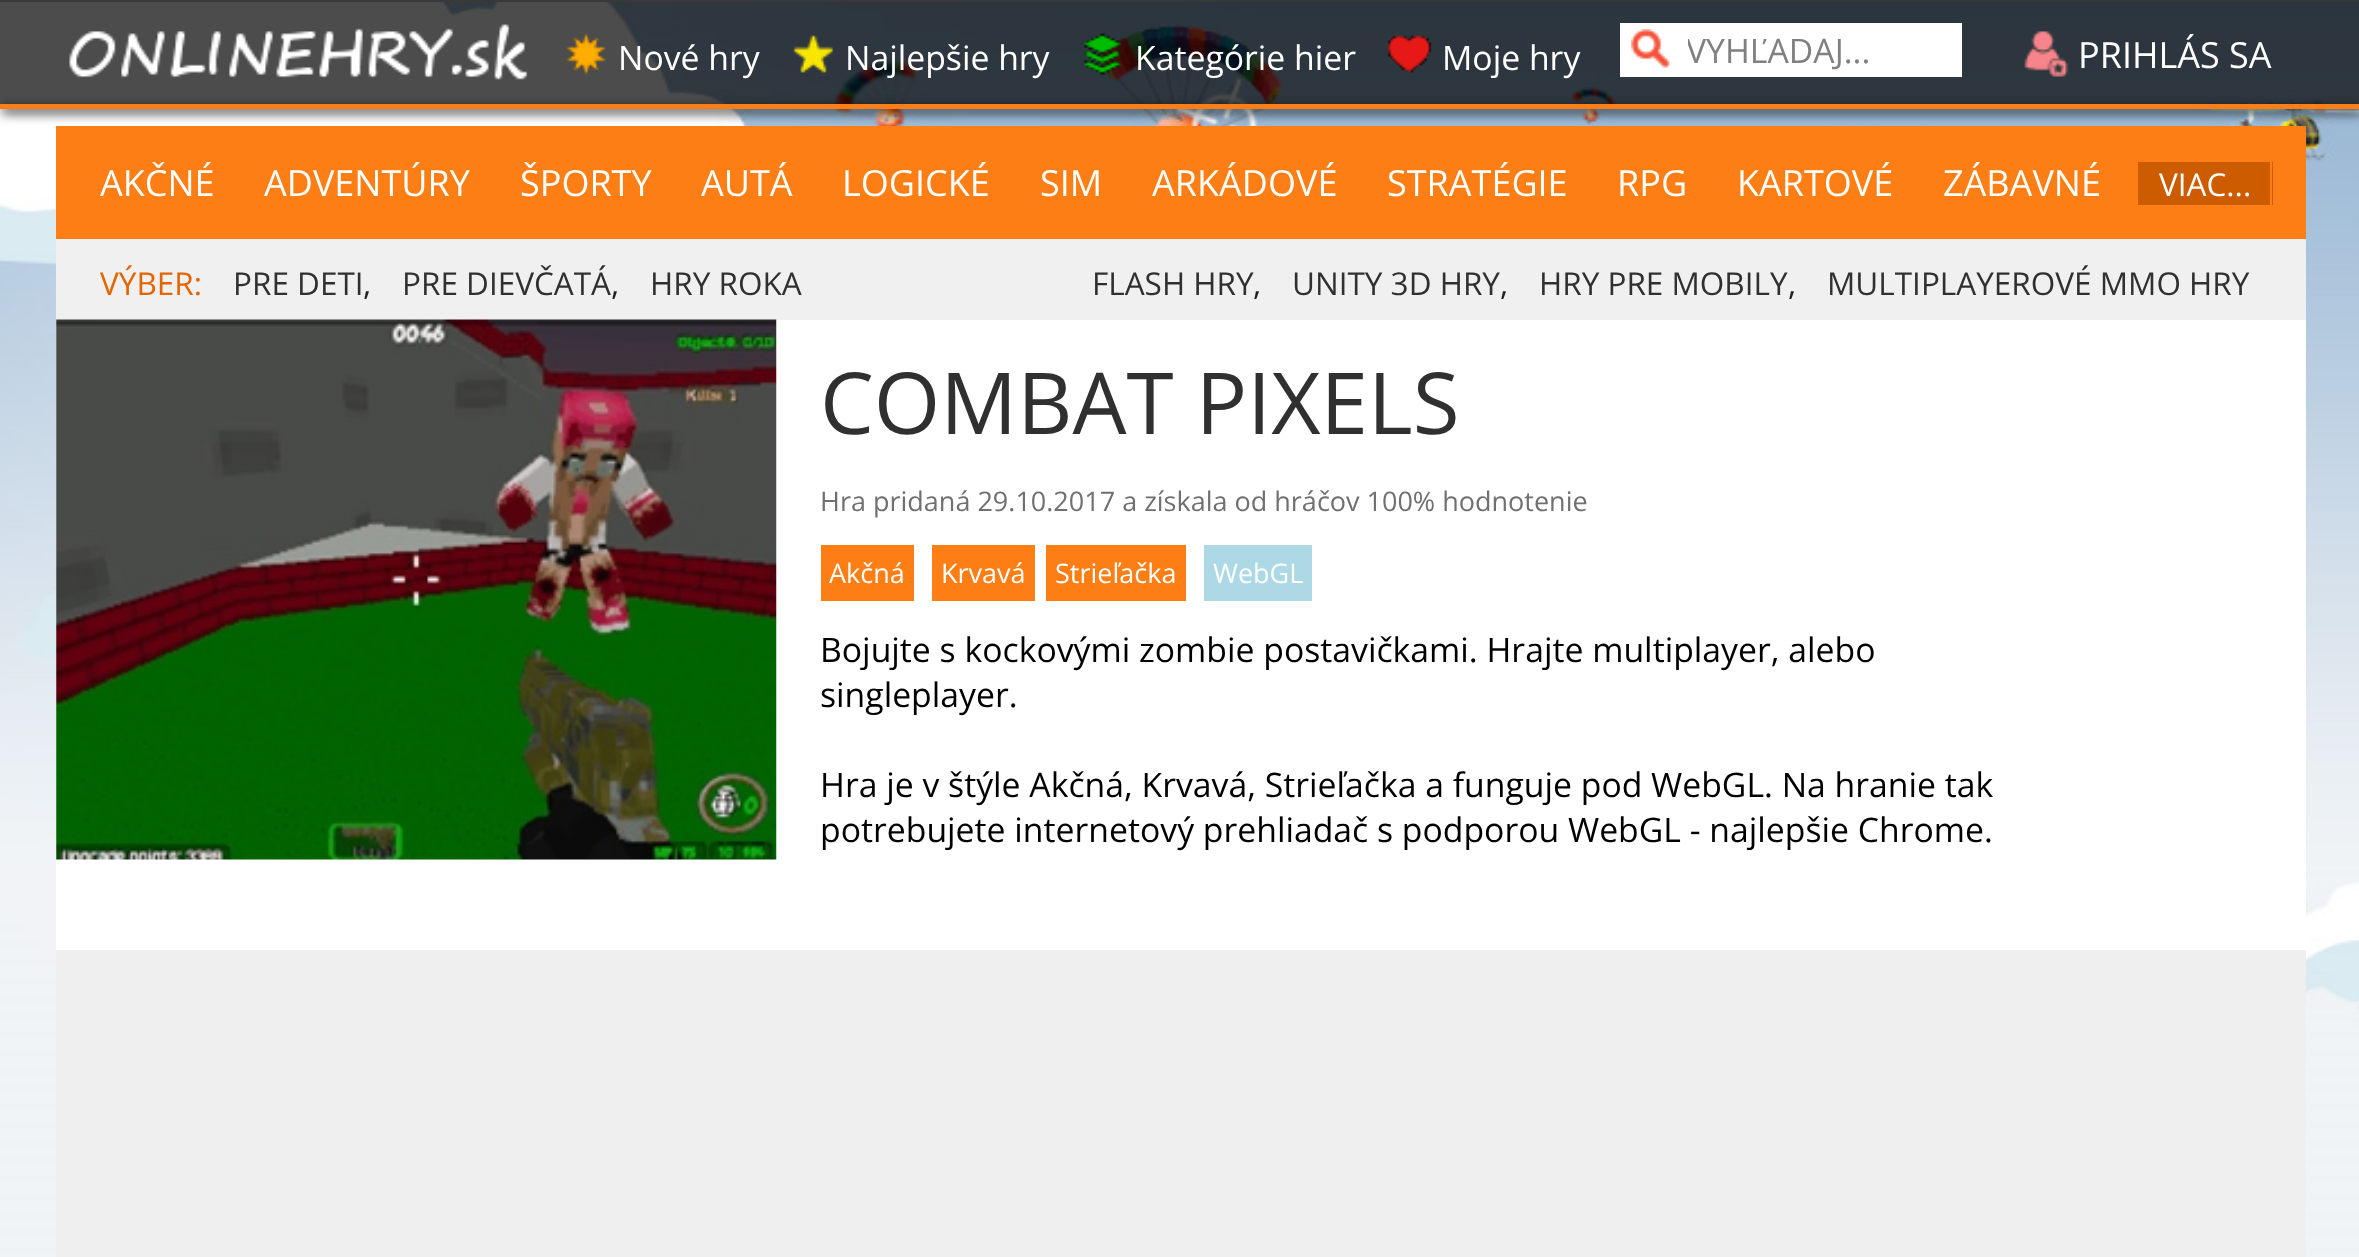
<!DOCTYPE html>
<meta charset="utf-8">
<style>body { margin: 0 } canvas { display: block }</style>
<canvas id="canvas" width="2359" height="1257"></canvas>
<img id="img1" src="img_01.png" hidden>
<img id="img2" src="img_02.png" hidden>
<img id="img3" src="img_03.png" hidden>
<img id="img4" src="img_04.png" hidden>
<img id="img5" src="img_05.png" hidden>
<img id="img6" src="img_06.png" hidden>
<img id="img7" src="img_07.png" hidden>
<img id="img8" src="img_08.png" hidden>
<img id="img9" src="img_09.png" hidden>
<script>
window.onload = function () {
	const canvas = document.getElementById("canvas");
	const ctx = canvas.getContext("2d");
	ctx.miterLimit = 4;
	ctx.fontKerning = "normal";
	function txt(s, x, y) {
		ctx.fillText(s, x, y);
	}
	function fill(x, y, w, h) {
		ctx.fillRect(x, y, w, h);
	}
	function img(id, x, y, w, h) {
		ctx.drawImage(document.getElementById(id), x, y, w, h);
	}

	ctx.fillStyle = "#FFFFFF";
	fill(0, 0, 2359, 1257);
	img("img1", 0, 2, 2359, 1255);
	ctx.fillStyle = "#C0C0C0";
	fill(0, 0, 2359, 2);
	ctx.fillStyle = "rgba(0, 0, 0, 0.7)";
	fill(0, 0, 2359, 104);
	ctx.save();
	ctx.beginPath();
	ctx.moveTo(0, 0);
	ctx.lineTo(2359, 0);
	ctx.lineTo(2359, 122);
	ctx.lineTo(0, 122);
	ctx.closePath();
	ctx.moveTo(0, 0);
	ctx.lineTo(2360, 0);
	ctx.lineTo(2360, 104);
	ctx.lineTo(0, 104);
	ctx.closePath();
	ctx.clip("evenodd");
	ctx.fillStyle = "#888888";
	ctx.filter = "blur(5.5px)";
	ctx.beginPath();
	ctx.rect(0, 0, 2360, 104);
	ctx.fill();
	ctx.filter = "none";
	ctx.restore();
	img("img2", 69, 24, 459, 56);
	img("img3", 566, 33, 40, 42);
	img("img4", 793, 35, 41, 38);
	img("img5", 1084, 33, 38, 42);
	img("img6", 1387, 35, 44, 38);
	ctx.fillStyle = "#FFFFFF";
	fill(1620, 23, 342, 54);
	img("img7", 1631, 29, 39, 39);
	img("img8", 2024, 31, 45, 46);
	ctx.fillStyle = "#FD7E15";
	fill(56, 126, 2250, 113);
	ctx.fillStyle = "#000000";
	ctx.filter = "blur(5.5px)";
	ctx.beginPath();
	ctx.rect(2, 108, 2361, 5);
	ctx.fill();
	ctx.filter = "none";
	ctx.fillStyle = "#FD7E15";
	fill(0, 104, 2359, 5);
	ctx.fillStyle = "#CD5C01";
	fill(2138, 162, 135, 43);
	ctx.fillStyle = "#FD7E15";
	fill(2270, 162, 2, 43);
	ctx.fillStyle = "#F0F0F0";
	fill(56, 239, 2250, 81);
	ctx.fillStyle = "#FFFFFF";
	fill(56, 320, 2250, 630);
	img("img9", 56, 319, 721, 541);
	ctx.fillStyle = "#FD7E15";
	fill(821, 545, 93, 56);
	fill(932, 545, 103, 56);
	fill(1046, 545, 140, 56);
	ctx.fillStyle = "#ADD8E6";
	fill(1204, 545, 108, 56);
	ctx.fillStyle = "#EFEFEF";
	fill(56, 950, 2250, 307);
	ctx.font = "33.75px Open Sans";
	ctx.fillStyle = "#FFFFFF";
	txt("Nové hry", 618, 70);
	txt("Najlepšie hry", 845, 70);
	txt("Kategórie hier", 1135, 70);
	txt("Moje hry", 1442, 70);
	ctx.save();
	ctx.beginPath();
	ctx.rect(1688, 27, 270, 45);
	ctx.clip();
	ctx.fillStyle = "#808080";
	txt("VYHĽADAJ...", 1686, 63);
	ctx.restore();
	ctx.font = "36px Open Sans";
	txt("PRIHLÁS SA", 2078, 68);
	txt("AKČNÉ", 100, 196);
	txt("ADVENTÚRY", 264, 196);
	txt("ŠPORTY", 520, 196);
	txt("AUTÁ", 701, 196);
	txt("LOGICKÉ", 842, 196);
	txt("SIM", 1040, 196);
	txt("ARKÁDOVÉ", 1152, 196);
	txt("STRATÉGIE", 1387, 196);
	txt("RPG", 1617, 196);
	txt("KARTOVÉ", 1737, 196);
	txt("ZÁBAVNÉ", 1943, 196);
	ctx.font = "31.5px Open Sans";
	txt("VIAC...", 2159, 196);
	ctx.fillStyle = "#E26500";
	txt("VÝBER:", 100, 295);
	ctx.fillStyle = "#303030";
	txt("PRE DETI", 233, 295);
	ctx.fillStyle = "#202020";
	txt(",", 363, 295);
	ctx.fillStyle = "#303030";
	txt("PRE DIEVČATÁ", 402, 295);
	ctx.fillStyle = "#202020";
	txt(",", 611, 295);
	ctx.fillStyle = "#303030";
	txt("HRY ROKA", 650, 295);
	txt("FLASH HRY", 1092, 295);
	ctx.fillStyle = "#202020";
	txt(",", 1253, 295);
	ctx.fillStyle = "#303030";
	txt("UNITY 3D HRY", 1292, 295);
	ctx.fillStyle = "#202020";
	txt(",", 1500, 295);
	ctx.fillStyle = "#303030";
	txt("HRY PRE MOBILY", 1539, 295);
	ctx.fillStyle = "#202020";
	txt(",", 1788, 295);
	ctx.fillStyle = "#303030";
	txt("MULTIPLAYEROVÉ MMO HRY", 1827, 295);
	ctx.font = "85.5px Open Sans";
	txt("COMBAT PIXELS", 820, 434);
	ctx.font = "27px Open Sans";
	ctx.fillStyle = "#707070";
	txt("Hra pridaná 29.10.2017 a získala od hráčov 100% hodnotenie", 820, 511);
	ctx.fillStyle = "#FFFFFF";
	txt("Akčná", 829, 583);
	txt("Krvavá", 941, 583);
	txt("Strieľačka", 1055, 583);
	txt("WebGL", 1213, 583);
	ctx.font = "33.75px Open Sans";
	ctx.fillStyle = "#000000";
	txt("Bojujte s kockovými zombie postavičkami. Hrajte multiplayer, alebo", 820, 662);
	txt("singleplayer.", 820, 707);
	txt("Hra je v štýle Akčná, Krvavá, Strieľačka a funguje pod WebGL. Na hranie tak", 820, 797);
	txt("potrebujete internetový prehliadač s podporou WebGL - najlepšie Chrome.", 820, 842);
};
</script>
